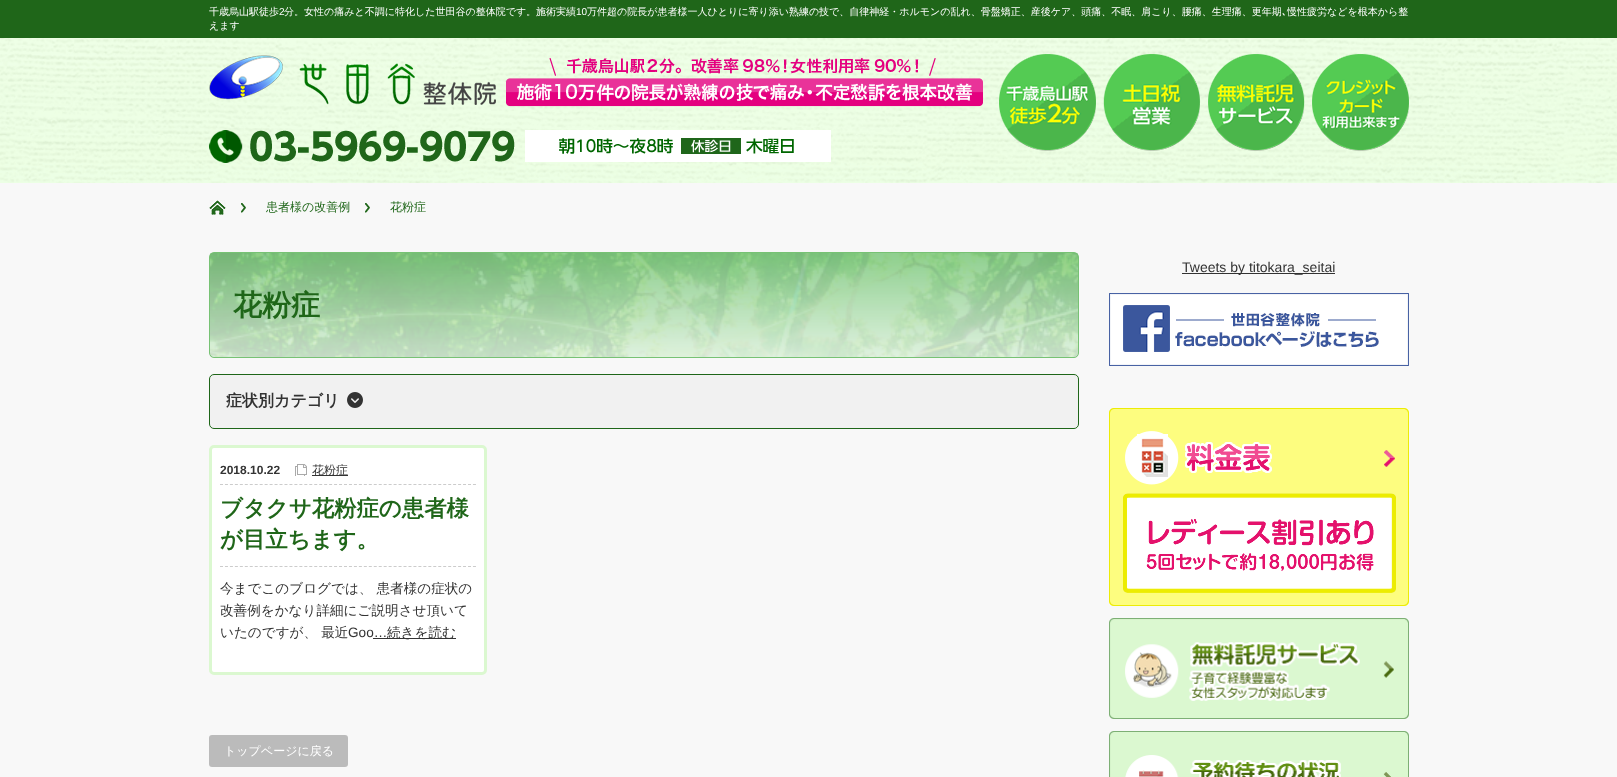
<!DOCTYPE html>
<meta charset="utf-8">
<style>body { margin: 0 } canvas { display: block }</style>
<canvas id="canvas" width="1617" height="777"></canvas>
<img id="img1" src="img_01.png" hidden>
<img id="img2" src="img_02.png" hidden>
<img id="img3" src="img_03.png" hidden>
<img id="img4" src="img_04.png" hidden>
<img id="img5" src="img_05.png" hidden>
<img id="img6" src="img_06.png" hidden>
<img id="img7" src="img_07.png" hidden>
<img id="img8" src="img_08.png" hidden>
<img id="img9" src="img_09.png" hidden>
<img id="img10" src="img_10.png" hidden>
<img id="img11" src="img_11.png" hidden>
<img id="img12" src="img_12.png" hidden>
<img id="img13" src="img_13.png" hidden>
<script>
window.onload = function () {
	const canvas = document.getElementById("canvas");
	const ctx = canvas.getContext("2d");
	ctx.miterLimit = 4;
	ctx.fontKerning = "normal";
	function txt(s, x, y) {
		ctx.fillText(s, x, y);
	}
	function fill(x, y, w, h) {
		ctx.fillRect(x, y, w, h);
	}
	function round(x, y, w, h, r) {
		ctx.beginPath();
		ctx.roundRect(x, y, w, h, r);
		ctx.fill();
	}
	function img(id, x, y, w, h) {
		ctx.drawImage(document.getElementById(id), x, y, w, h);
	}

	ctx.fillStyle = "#F8F8F8";
	fill(0, 0, 1617, 777);
	ctx.fillStyle = "#1F6619";
	fill(0, 0, 1617, 38);
	ctx.fillStyle = "#E7FFDD";
	fill(0, 38, 1617, 145);
	img("img1", 0, 38, 1617, 145);
	img("img2", 209, 55, 774, 52);
	img("img3", 209, 130, 622, 33);
	img("img4", 999, 54, 410, 97);
	img("img5", 241, 203, 5, 10);
	img("img6", 209, 200, 17, 15);
	img("img5", 365, 203, 5, 10);
	ctx.fillStyle = "#333333";
	fill(1182, 273, 153, 1);
	img("img7", 1109, 293, 300, 73);
	img("img8", 1109, 408, 300, 198);
	img("img9", 1109, 618, 300, 101);
	img("img10", 1109, 731, 300, 46);
	img("img11", 210, 253, 868, 105);
	ctx.beginPath();
	ctx.roundRect(209.5, 252.5, 869, 105, 4.5);
	ctx.strokeStyle = "#77C274";
	ctx.stroke();
	ctx.fillStyle = "#F1F1F1";
	ctx.beginPath();
	ctx.roundRect(209.5, 374.5, 869, 54, 4.5);
	ctx.fill();
	ctx.strokeStyle = "#1F6619";
	ctx.stroke();
	img("img12", 347, 392, 16, 16);
	ctx.fillStyle = "#FFFFFF";
	ctx.beginPath();
	ctx.roundRect(210.5, 446.5, 275, 227, 3.5);
	ctx.fill();
	ctx.strokeStyle = "#DBF8D0";
	ctx.lineWidth = 3;
	ctx.stroke();
	ctx.beginPath();
	ctx.moveTo(220, 484.5);
	ctx.lineTo(476, 484.5);
	ctx.strokeStyle = "#CCCCCC";
	ctx.lineWidth = 1;
	ctx.setLineDash([3, 1.96]);
	ctx.stroke();
	img("img13", 295, 464, 12, 12);
	ctx.fillStyle = "#333333";
	fill(312, 475, 36, 1);
	ctx.beginPath();
	ctx.moveTo(220, 566.5);
	ctx.lineTo(476, 566.5);
	ctx.stroke();
	fill(373, 638, 83, 1);
	ctx.fillStyle = "#BBBBBB";
	round(209, 735, 139, 32, 3);
	ctx.font = "500 10px WenQuanYi Zen Hei";
	ctx.fillStyle = "#FFFFFF";
	txt("千歳烏山駅徒歩", 209, 15);
	ctx.font = "10px Liberation Sans";
	txt("2", 279, 15);
	ctx.font = "500 10px WenQuanYi Zen Hei";
	txt("分。女性の痛みと不調に特化した世田谷の整体院です。施術実績", 284, 15);
	ctx.font = "10px Liberation Sans";
	txt("10", 576, 15);
	ctx.font = "500 10px WenQuanYi Zen Hei";
	txt("万件超の院長が患者様一人ひとりに寄り添い熟練の技で、自律神経・ホルモンの乱れ、骨盤矯正、産後ケア、頭痛、不眠、肩こり、腰痛、生理痛、更年期", 587, 15);
	ctx.font = "10px IPAGothic";
	txt("､", 1282, 15);
	ctx.font = "500 10px WenQuanYi Zen Hei";
	txt("慢性疲労などを根本から整", 1287, 15);
	txt("えます", 209, 29);
	ctx.font = "500 12px WenQuanYi Zen Hei";
	ctx.fillStyle = "#1F6619";
	txt("患者様の改善例", 266, 211);
	txt("花粉症", 390, 211);
	ctx.font = "14px Liberation Sans";
	ctx.fillStyle = "#333333";
	txt("Tweets by titokara_seitai", 1182, 272);
	ctx.font = "bold 29px WenQuanYi Zen Hei";
	ctx.fillStyle = "#1F6619";
	txt("花粉症", 233, 315);
	ctx.font = "bold 16px WenQuanYi Zen Hei";
	ctx.fillStyle = "#333333";
	txt("症状別カテゴリ", 226, 406);
	ctx.font = "bold 12px Liberation Sans";
	txt("2018.10.22", 220, 474);
	ctx.font = "500 12px WenQuanYi Zen Hei";
	txt("花粉症", 312, 474);
	ctx.font = "bold 22.4px WenQuanYi Zen Hei";
	ctx.fillStyle = "#1F6619";
	txt("ブタクサ花粉症の患者様", 220, 516);
	txt("が目立ちます。", 220, 547);
	ctx.font = "500 13.6px WenQuanYi Zen Hei";
	ctx.fillStyle = "#333333";
	txt("今までこのブログでは、 患者様の症状の", 220, 593);
	txt("改善例をかなり詳細にご説明させ頂いて", 220, 615);
	txt("いたのですが、 最近", 220, 637);
	ctx.font = "13.6px Liberation Sans";
	txt("Goo…", 348, 637);
	ctx.font = "500 13.6px WenQuanYi Zen Hei";
	txt("続きを読む", 387, 637);
	ctx.font = "500 12px WenQuanYi Zen Hei";
	ctx.fillStyle = "#FFFFFF";
	txt("トップページに戻る", 224, 755);
};
</script>
